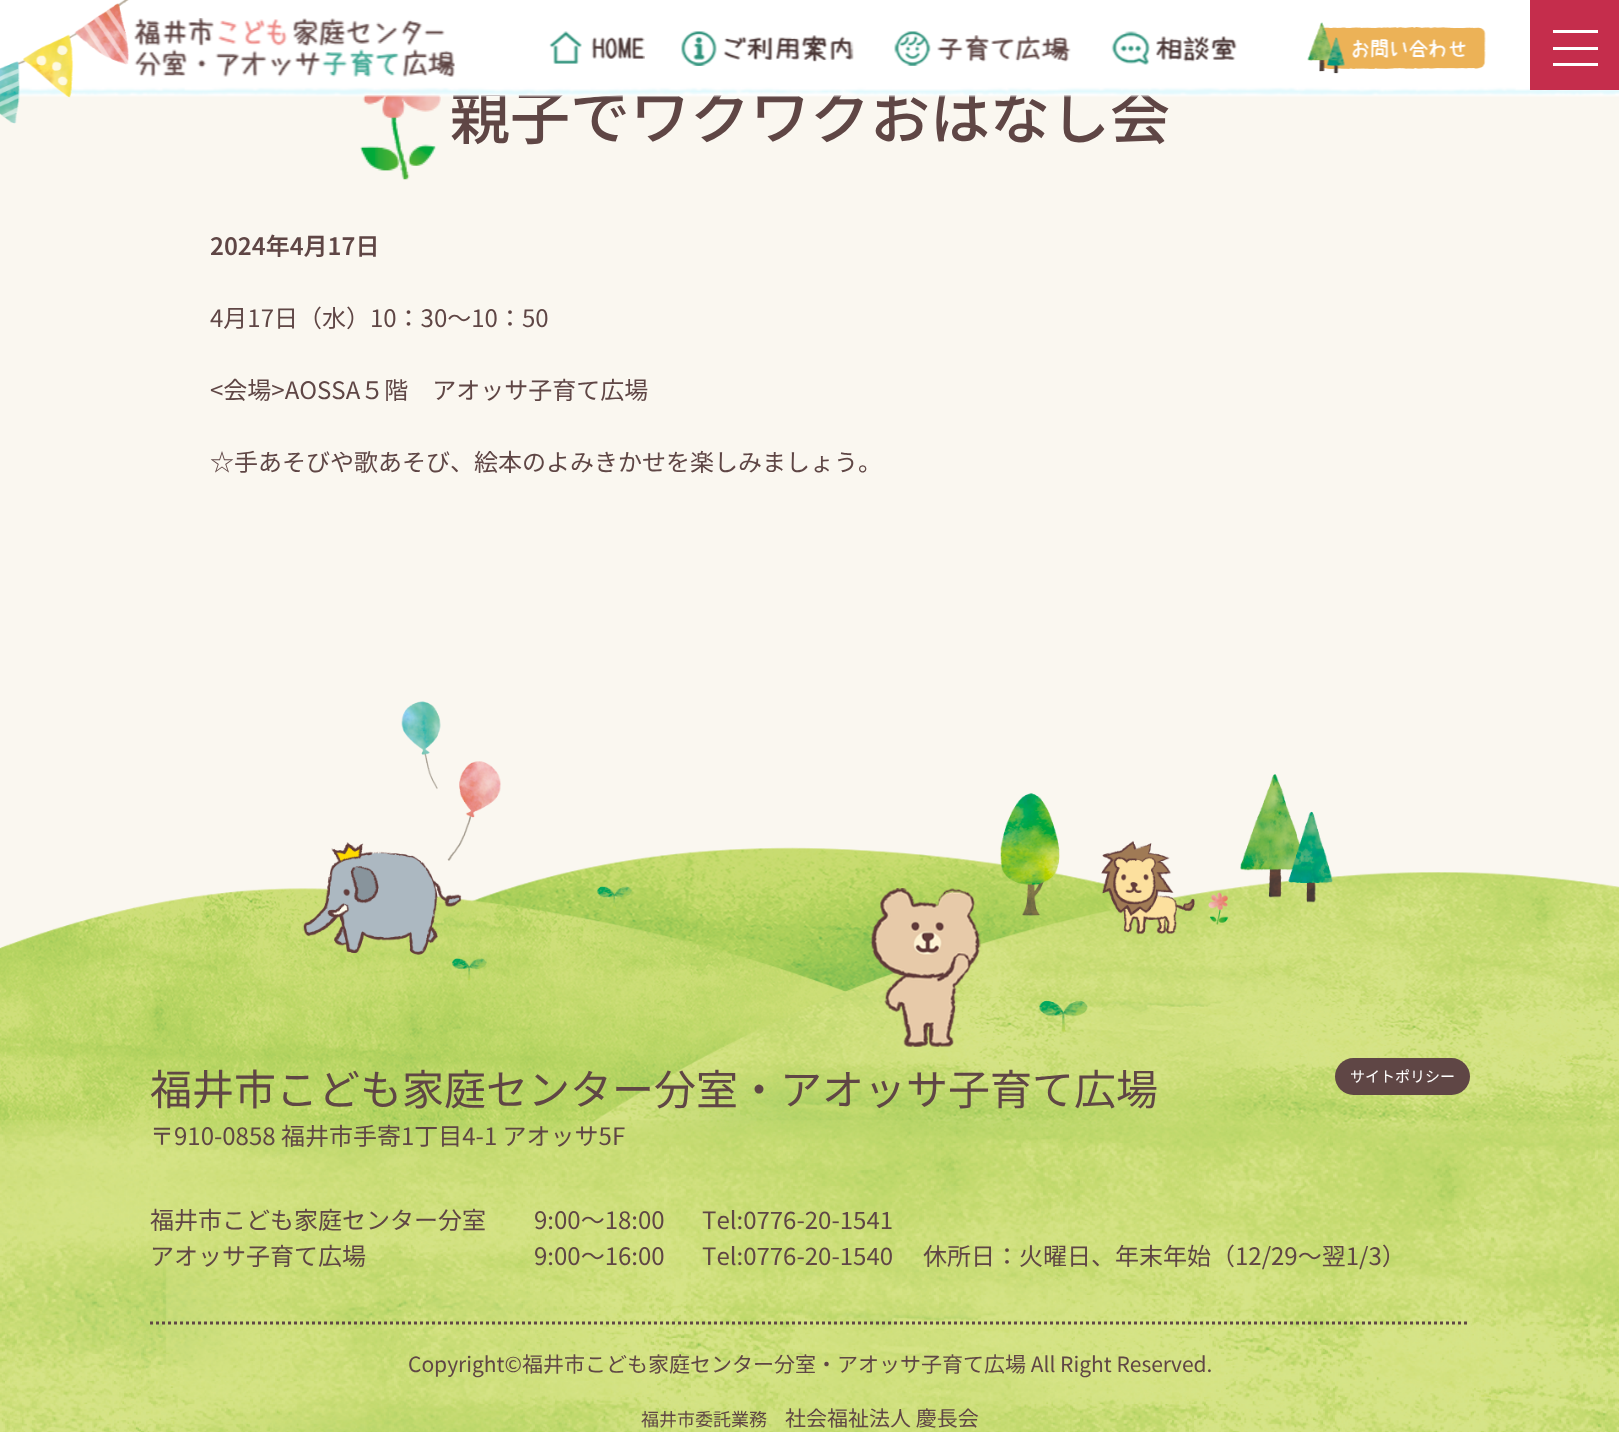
<!DOCTYPE html>
<meta charset="utf-8">
<style>body { margin: 0 } canvas { display: block }</style>
<canvas id="canvas" width="1619" height="1432"></canvas>
<img id="img1" src="img_09.png" hidden>
<img id="img2" src="img_10.png" hidden>
<img id="img3" src="img_01.png" hidden>
<img id="img4" src="img_02.png" hidden>
<img id="img5" src="img_07.png" hidden>
<img id="img6" src="img_06.png" hidden>
<img id="img7" src="img_05.png" hidden>
<img id="img8" src="img_04.png" hidden>
<img id="img9" src="img_08.png" hidden>
<img id="img10" src="img_03.png" hidden>
<script>
window.onload = function () {
	const canvas = document.getElementById("canvas");
	const ctx = canvas.getContext("2d");
	ctx.miterLimit = 4;
	ctx.fontKerning = "none";
	function txt(s, x, y) {
		ctx.fillText(s, x, y);
	}
	function fill(x, y, w, h) {
		ctx.fillRect(x, y, w, h);
	}
	function round(x, y, w, h, r) {
		ctx.beginPath();
		ctx.roundRect(x, y, w, h, r);
		ctx.fill();
	}
	function img(id, x, y, w, h) {
		ctx.drawImage(document.getElementById(id), x, y, w, h);
	}

	ctx.fillStyle = "#FAF7F0";
	fill(0, 0, 1619, 1432);
	img("img1", 360, 95, 81, 85);
	img("img2", 0, 701, 1619, 731);
	ctx.fillStyle = "#5F4645";
	round(1335, 1058, 135, 37, 18.5);
	ctx.beginPath();
	ctx.moveTo(150, 1323);
	ctx.lineTo(1470, 1323);
	ctx.strokeStyle = "#5F4645";
	ctx.lineWidth = 3;
	ctx.setLineDash([3, 3]);
	ctx.stroke();
	ctx.font = "500 60px Noto Sans JP";
	txt("親子でワクワクおはなし会", 450, 139);
	img("img3", 0, 0, 1619, 98);
	ctx.fillStyle = "#C52D4C";
	fill(1530, 0, 89, 90);
	ctx.fillStyle = "#FFFFFF";
	fill(1553, 63, 45, 3);
	fill(1553, 30, 45, 3);
	fill(1553, 47, 45, 3);
	img("img4", 0, 0, 129, 124);
	img("img5", 1111, 31, 126, 34);
	img("img6", 894, 31, 177, 35);
	img("img7", 681, 31, 173, 35);
	img("img8", 549, 31, 96, 33);
	img("img9", 1307, 22, 179, 52);
	img("img10", 134, 18, 321, 59);
	ctx.font = "600 24px Noto Sans JP";
	ctx.fillStyle = "#5F4645";
	txt("2024年4月17日", 210, 255);
	ctx.font = "24px Noto Sans JP";
	txt("4月17日（水）10：30～10：50", 210, 327);
	txt("<会場>AOSSA５階　アオッサ子育て広場", 210, 399);
	txt("☆手あそびや歌あそび、絵本のよみきかせを楽しみましょう。", 210, 471);
	ctx.font = "42px Noto Sans JP";
	txt("福井市こども家庭センター分室・アオッサ子育て広場", 150, 1105);
	ctx.font = "15px Noto Sans JP";
	ctx.fillStyle = "#FFFFFF";
	txt("サイトポリシー", 1350, 1082);
	ctx.font = "24px Noto Sans JP";
	ctx.fillStyle = "#5F4645";
	txt("〒910-0858 福井市手寄1丁目4-1 アオッサ5F", 150, 1145);
	txt("福井市こども家庭センター分室", 150, 1229);
	txt("9:00～18:00", 534, 1229);
	txt("Tel:0776-20-1541", 702, 1229);
	txt("アオッサ子育て広場", 150, 1265);
	txt("9:00～16:00", 534, 1265);
	txt("Tel:0776-20-1540", 702, 1265);
	txt("休所日：火曜日、年末年始（12/29～翌1/3）", 923, 1265);
	ctx.font = "21px Noto Sans JP";
	txt("Copyright©福井市こども家庭センター分室・アオッサ子育て広場 All Right Reserved.", 408, 1372);
	ctx.font = "18px Noto Sans JP";
	txt("福井市委託業務", 641, 1426);
	ctx.font = "21px Noto Sans JP";
	txt("社会福祉法人 慶長会", 785, 1426);
};
</script>
